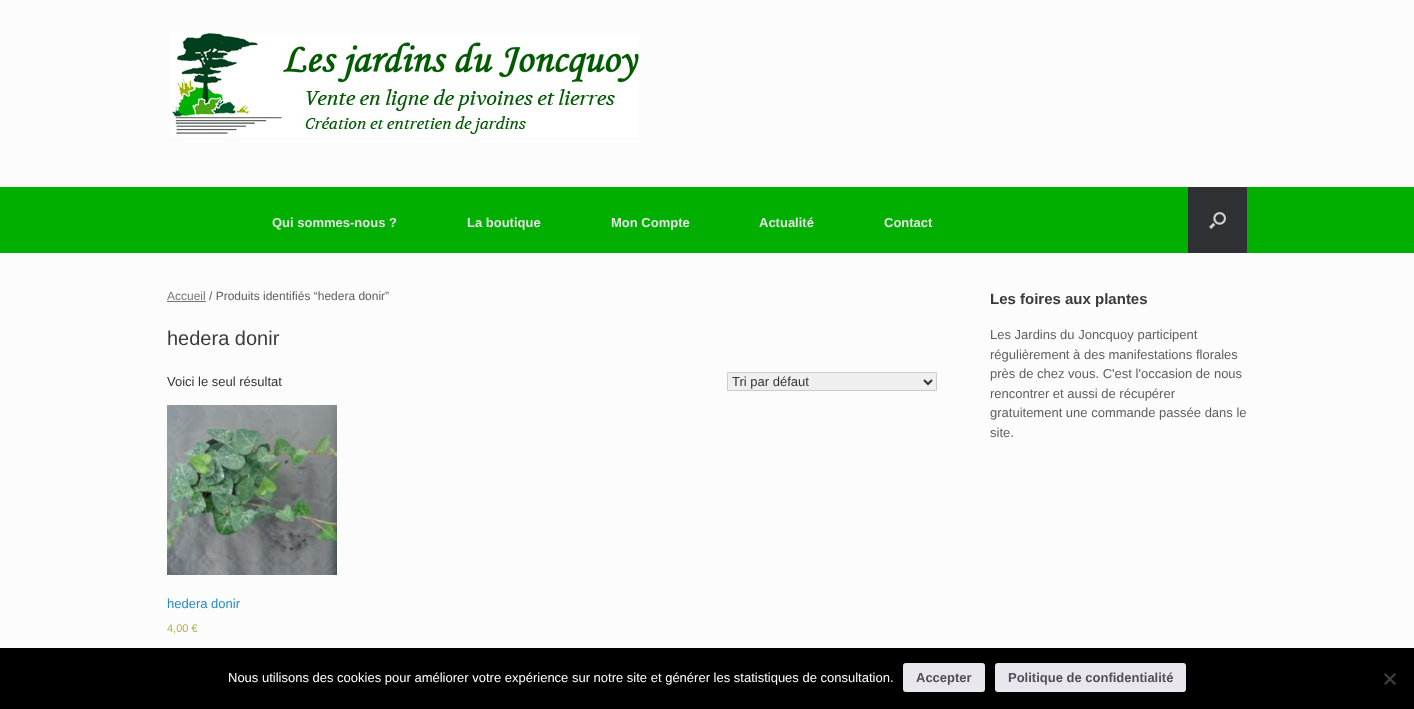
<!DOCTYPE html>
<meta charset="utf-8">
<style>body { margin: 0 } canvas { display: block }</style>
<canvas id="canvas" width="1414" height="709"></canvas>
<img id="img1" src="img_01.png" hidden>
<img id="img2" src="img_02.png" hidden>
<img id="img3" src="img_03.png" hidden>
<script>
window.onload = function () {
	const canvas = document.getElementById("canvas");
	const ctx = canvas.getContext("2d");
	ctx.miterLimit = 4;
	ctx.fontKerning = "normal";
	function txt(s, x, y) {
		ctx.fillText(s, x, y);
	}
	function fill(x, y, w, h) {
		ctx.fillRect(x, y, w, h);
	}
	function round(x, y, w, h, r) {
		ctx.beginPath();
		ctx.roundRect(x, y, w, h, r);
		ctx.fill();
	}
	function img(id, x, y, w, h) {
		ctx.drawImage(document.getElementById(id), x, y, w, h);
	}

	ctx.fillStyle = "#FCFCFC";
	fill(0, 0, 1414, 709);
	img("img1", 170, 33, 469, 104);
	ctx.fillStyle = "#01AF00";
	fill(0, 187, 1414, 66);
	ctx.fillStyle = "#303134";
	fill(1188, 187, 59, 66);
	img("img2", 1209, 212, 17, 17);
	ctx.fillStyle = "#767676";
	fill(167, 301, 39, 1);
	ctx.fillStyle = "#EFEFEF";
	ctx.beginPath();
	ctx.rect(727.5, 372.5, 209, 18);
	ctx.fill();
	ctx.strokeStyle = "#CCCCCC";
	ctx.stroke();
	ctx.beginPath();
	ctx.moveTo(924, 380);
	ctx.lineTo(928, 384);
	ctx.lineTo(932, 380);
	ctx.strokeStyle = "#333333";
	ctx.lineWidth = 2;
	ctx.stroke();
	img("img3", 167, 405, 170, 170);
	ctx.fillStyle = "#000000";
	fill(0, 648, 1414, 61);
	ctx.fillStyle = "#E9E6ED";
	round(903, 663, 82, 29, 3);
	round(995, 663, 191, 29, 3);
	ctx.fillStyle = "#404040";
	ctx.beginPath();
	ctx.moveTo(1394.5, 673);
	ctx.lineTo(1396, 674.5);
	ctx.lineTo(1385.5, 685);
	ctx.lineTo(1384, 683.5);
	ctx.closePath();
	ctx.fill();
	ctx.beginPath();
	ctx.moveTo(1384, 674.5);
	ctx.lineTo(1385.5, 673);
	ctx.lineTo(1396, 683.5);
	ctx.lineTo(1394.5, 685);
	ctx.closePath();
	ctx.fill();
	ctx.font = "bold 13px Liberation Sans";
	ctx.fillStyle = "#E2E2E2";
	txt("Qui sommes-nous ?", 272, 227);
	txt("La boutique", 467, 227);
	txt("Mon Compte", 611, 227);
	txt("Actualité", 759, 227);
	txt("Contact", 884, 227);
	ctx.font = "12px Liberation Sans";
	ctx.fillStyle = "#767676";
	txt("Accueil", 167, 300);
	ctx.fillStyle = "#5E5E5E";
	txt("/ Produits identifiés “hedera donir”", 209, 300);
	ctx.font = "20px Liberation Sans";
	ctx.fillStyle = "#3B3B3B";
	txt("hedera donir", 167, 345);
	ctx.font = "13px Liberation Sans";
	ctx.fillStyle = "#333333";
	txt("Voici le seul résultat", 167, 386);
	txt("Tri par défaut", 732, 386);
	ctx.fillStyle = "#248CC8";
	txt("hedera donir", 167, 608);
	ctx.font = "11px Liberation Sans";
	ctx.fillStyle = "#B3AF54";
	txt("4,00 €", 167, 632);
	ctx.font = "bold 15px Liberation Sans";
	ctx.fillStyle = "#3B3B3B";
	txt("Les foires aux plantes", 990, 304);
	ctx.font = "13px Liberation Sans";
	ctx.fillStyle = "#5E5E5E";
	txt("Les Jardins du Joncquoy participent", 990, 339);
	txt("régulièrement à des manifestations florales", 990, 359);
	txt("près de chez vous. C'est l'occasion de nous", 990, 378);
	txt("rencontrer et aussi de récupérer", 990, 398);
	txt("gratuitement une commande passée dans le", 990, 417);
	txt("site.", 990, 437);
	ctx.fillStyle = "#FFFFFF";
	txt("Nous utilisons des cookies pour améliorer votre expérience sur notre site et générer les statistiques de consultation.", 228, 682);
	ctx.font = "bold 13px Liberation Sans";
	ctx.fillStyle = "#515151";
	txt("Accepter", 916, 682);
	txt("Politique de confidentialité", 1008, 682);
};
</script>
